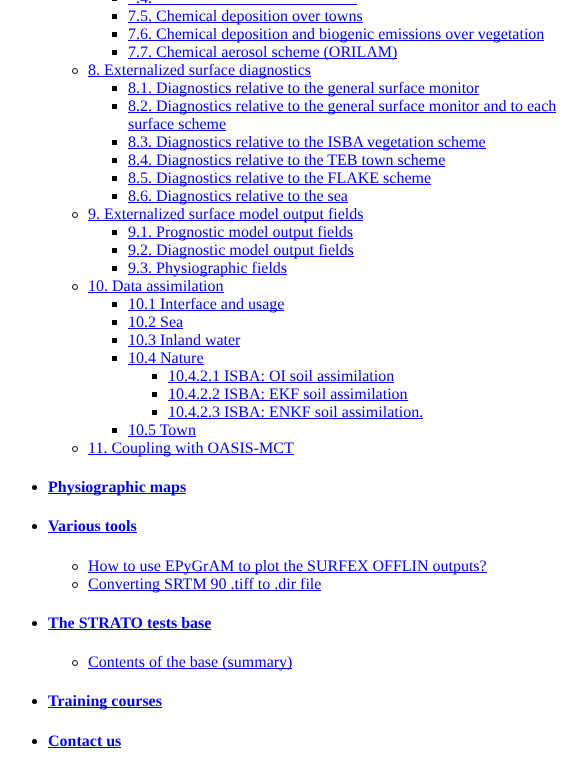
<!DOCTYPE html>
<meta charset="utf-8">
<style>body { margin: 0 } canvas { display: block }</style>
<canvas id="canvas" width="568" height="773"></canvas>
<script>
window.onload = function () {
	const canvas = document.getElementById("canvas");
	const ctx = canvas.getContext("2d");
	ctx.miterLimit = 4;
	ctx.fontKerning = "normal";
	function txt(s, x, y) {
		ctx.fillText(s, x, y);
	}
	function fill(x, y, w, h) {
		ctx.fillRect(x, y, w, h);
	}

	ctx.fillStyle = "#FFFFFF";
	fill(0, 0, 568, 773);
	ctx.fillStyle = "#000000";
	fill(112, 0, 5, 1);
	ctx.fillStyle = "#0000EE";
	fill(128, 4, 229, 1);
	ctx.fillStyle = "#000000";
	fill(112, 14, 5, 5);
	ctx.fillStyle = "#0000EE";
	fill(128, 22, 235, 1);
	ctx.fillStyle = "#000000";
	fill(112, 32, 5, 5);
	ctx.fillStyle = "#0000EE";
	fill(128, 40, 416, 1);
	ctx.fillStyle = "#000000";
	fill(112, 50, 5, 5);
	ctx.fillStyle = "#0000EE";
	fill(128, 58, 269, 1);
	ctx.beginPath();
	ctx.arc(75, 71, 2.5, 0, Math.PI * 2);
	ctx.strokeStyle = "#000000";
	ctx.stroke();
	fill(88, 76, 223, 1);
	ctx.fillStyle = "#000000";
	fill(112, 86, 5, 5);
	ctx.fillStyle = "#0000EE";
	fill(128, 94, 351, 1);
	ctx.fillStyle = "#000000";
	fill(112, 104, 5, 5);
	ctx.fillStyle = "#0000EE";
	fill(128, 112, 428, 1);
	fill(128, 130, 98, 1);
	ctx.fillStyle = "#000000";
	fill(112, 140, 5, 5);
	ctx.fillStyle = "#0000EE";
	fill(128, 148, 358, 1);
	ctx.fillStyle = "#000000";
	fill(112, 158, 5, 5);
	ctx.fillStyle = "#0000EE";
	fill(128, 166, 317, 1);
	ctx.fillStyle = "#000000";
	fill(112, 176, 5, 5);
	ctx.fillStyle = "#0000EE";
	fill(128, 184, 303, 1);
	ctx.fillStyle = "#000000";
	fill(112, 194, 5, 5);
	ctx.fillStyle = "#0000EE";
	fill(128, 202, 220, 1);
	ctx.beginPath();
	ctx.arc(75, 215, 2.5, 0, Math.PI * 2);
	ctx.stroke();
	fill(88, 220, 275, 1);
	ctx.fillStyle = "#000000";
	fill(112, 230, 5, 5);
	ctx.fillStyle = "#0000EE";
	fill(128, 238, 225, 1);
	ctx.fillStyle = "#000000";
	fill(112, 248, 5, 5);
	ctx.fillStyle = "#0000EE";
	fill(128, 256, 226, 1);
	ctx.fillStyle = "#000000";
	fill(112, 266, 5, 5);
	ctx.fillStyle = "#0000EE";
	fill(128, 274, 159, 1);
	ctx.beginPath();
	ctx.arc(75, 287, 2.5, 0, Math.PI * 2);
	ctx.stroke();
	fill(88, 292, 136, 1);
	ctx.fillStyle = "#000000";
	fill(112, 302, 5, 5);
	ctx.fillStyle = "#0000EE";
	fill(128, 310, 156, 1);
	ctx.fillStyle = "#000000";
	fill(112, 320, 5, 5);
	ctx.fillStyle = "#0000EE";
	fill(128, 328, 55, 1);
	ctx.fillStyle = "#000000";
	fill(112, 338, 5, 5);
	ctx.fillStyle = "#0000EE";
	fill(128, 346, 112, 1);
	ctx.fillStyle = "#000000";
	fill(112, 356, 5, 5);
	ctx.fillStyle = "#0000EE";
	fill(128, 364, 76, 1);
	ctx.fillStyle = "#000000";
	fill(152, 374, 5, 5);
	ctx.fillStyle = "#0000EE";
	fill(168, 382, 226, 1);
	ctx.fillStyle = "#000000";
	fill(152, 392, 5, 5);
	ctx.fillStyle = "#0000EE";
	fill(168, 400, 240, 1);
	ctx.fillStyle = "#000000";
	fill(152, 410, 5, 5);
	ctx.fillStyle = "#0000EE";
	fill(168, 418, 255, 1);
	ctx.fillStyle = "#000000";
	fill(112, 428, 5, 5);
	ctx.fillStyle = "#0000EE";
	fill(128, 436, 68, 1);
	ctx.beginPath();
	ctx.arc(75, 449, 2.5, 0, Math.PI * 2);
	ctx.stroke();
	fill(88, 454, 206, 1);
	ctx.fillStyle = "#000000";
	ctx.beginPath();
	ctx.arc(34.5, 487.5, 2.5, 0, Math.PI * 2);
	ctx.fill();
	ctx.fillStyle = "#0000EE";
	fill(48, 493, 138, 1);
	ctx.fillStyle = "#000000";
	ctx.beginPath();
	ctx.arc(34.5, 526.5, 2.5, 0, Math.PI * 2);
	ctx.fill();
	ctx.fillStyle = "#0000EE";
	fill(48, 532, 89, 1);
	ctx.beginPath();
	ctx.arc(75, 567, 2.5, 0, Math.PI * 2);
	ctx.stroke();
	fill(88, 572, 399, 1);
	ctx.beginPath();
	ctx.arc(75, 585, 2.5, 0, Math.PI * 2);
	ctx.stroke();
	fill(88, 590, 233, 1);
	ctx.fillStyle = "#000000";
	ctx.beginPath();
	ctx.arc(34.5, 623.5, 2.5, 0, Math.PI * 2);
	ctx.fill();
	ctx.fillStyle = "#0000EE";
	fill(48, 629, 163, 1);
	ctx.beginPath();
	ctx.arc(75, 663, 2.5, 0, Math.PI * 2);
	ctx.stroke();
	fill(88, 668, 204, 1);
	ctx.fillStyle = "#000000";
	ctx.beginPath();
	ctx.arc(34.5, 701.5, 2.5, 0, Math.PI * 2);
	ctx.fill();
	ctx.fillStyle = "#0000EE";
	fill(48, 707, 114, 1);
	ctx.fillStyle = "#000000";
	ctx.beginPath();
	ctx.arc(34.5, 741.5, 2.5, 0, Math.PI * 2);
	ctx.fill();
	ctx.fillStyle = "#0000EE";
	fill(48, 747, 73, 1);
	ctx.font = "16px Liberation Serif";
	txt(".4.", 136, 3);
	txt("7.5. Chemical deposition over towns", 128, 21);
	txt("7.6. Chemical deposition and biogenic emissions over vegetation", 128, 39);
	txt("7.7. Chemical aerosol scheme (ORILAM)", 128, 57);
	txt("8. Externalized surface diagnostics", 88, 75);
	txt("8.1. Diagnostics relative to the general surface monitor", 128, 93);
	txt("8.2. Diagnostics relative to the general surface monitor and to each", 128, 111);
	txt("surface scheme", 128, 129);
	txt("8.3. Diagnostics relative to the ISBA vegetation scheme", 128, 147);
	txt("8.4. Diagnostics relative to the TEB town scheme", 128, 165);
	txt("8.5. Diagnostics relative to the FLAKE scheme", 128, 183);
	txt("8.6. Diagnostics relative to the sea", 128, 201);
	txt("9. Externalized surface model output fields", 88, 219);
	txt("9.1. Prognostic model output fields", 128, 237);
	txt("9.2. Diagnostic model output fields", 128, 255);
	txt("9.3. Physiographic fields", 128, 273);
	txt("10. Data assimilation", 88, 291);
	txt("10.1 Interface and usage", 128, 309);
	txt("10.2 Sea", 128, 327);
	txt("10.3 Inland water", 128, 345);
	txt("10.4 Nature", 128, 363);
	txt("10.4.2.1 ISBA: OI soil assimilation", 168, 381);
	txt("10.4.2.2 ISBA: EKF soil assimilation", 168, 399);
	txt("10.4.2.3 ISBA: ENKF soil assimilation.", 168, 417);
	txt("10.5 Town", 128, 435);
	txt("11. Coupling with OASIS-MCT", 88, 453);
	ctx.font = "bold 16px Liberation Serif";
	txt("Physiographic maps", 48, 492);
	txt("Various tools", 48, 531);
	ctx.font = "16px Liberation Serif";
	txt("How to use EPyGrAM to plot the SURFEX OFFLIN outputs?", 88, 571);
	txt("Converting SRTM 90 .tiff to .dir file", 88, 589);
	ctx.font = "bold 16px Liberation Serif";
	txt("The STRATO tests base", 48, 628);
	ctx.font = "16px Liberation Serif";
	txt("Contents of the base (summary)", 88, 667);
	ctx.font = "bold 16px Liberation Serif";
	txt("Training courses", 48, 706);
	txt("Contact us", 48, 746);
};
</script>
